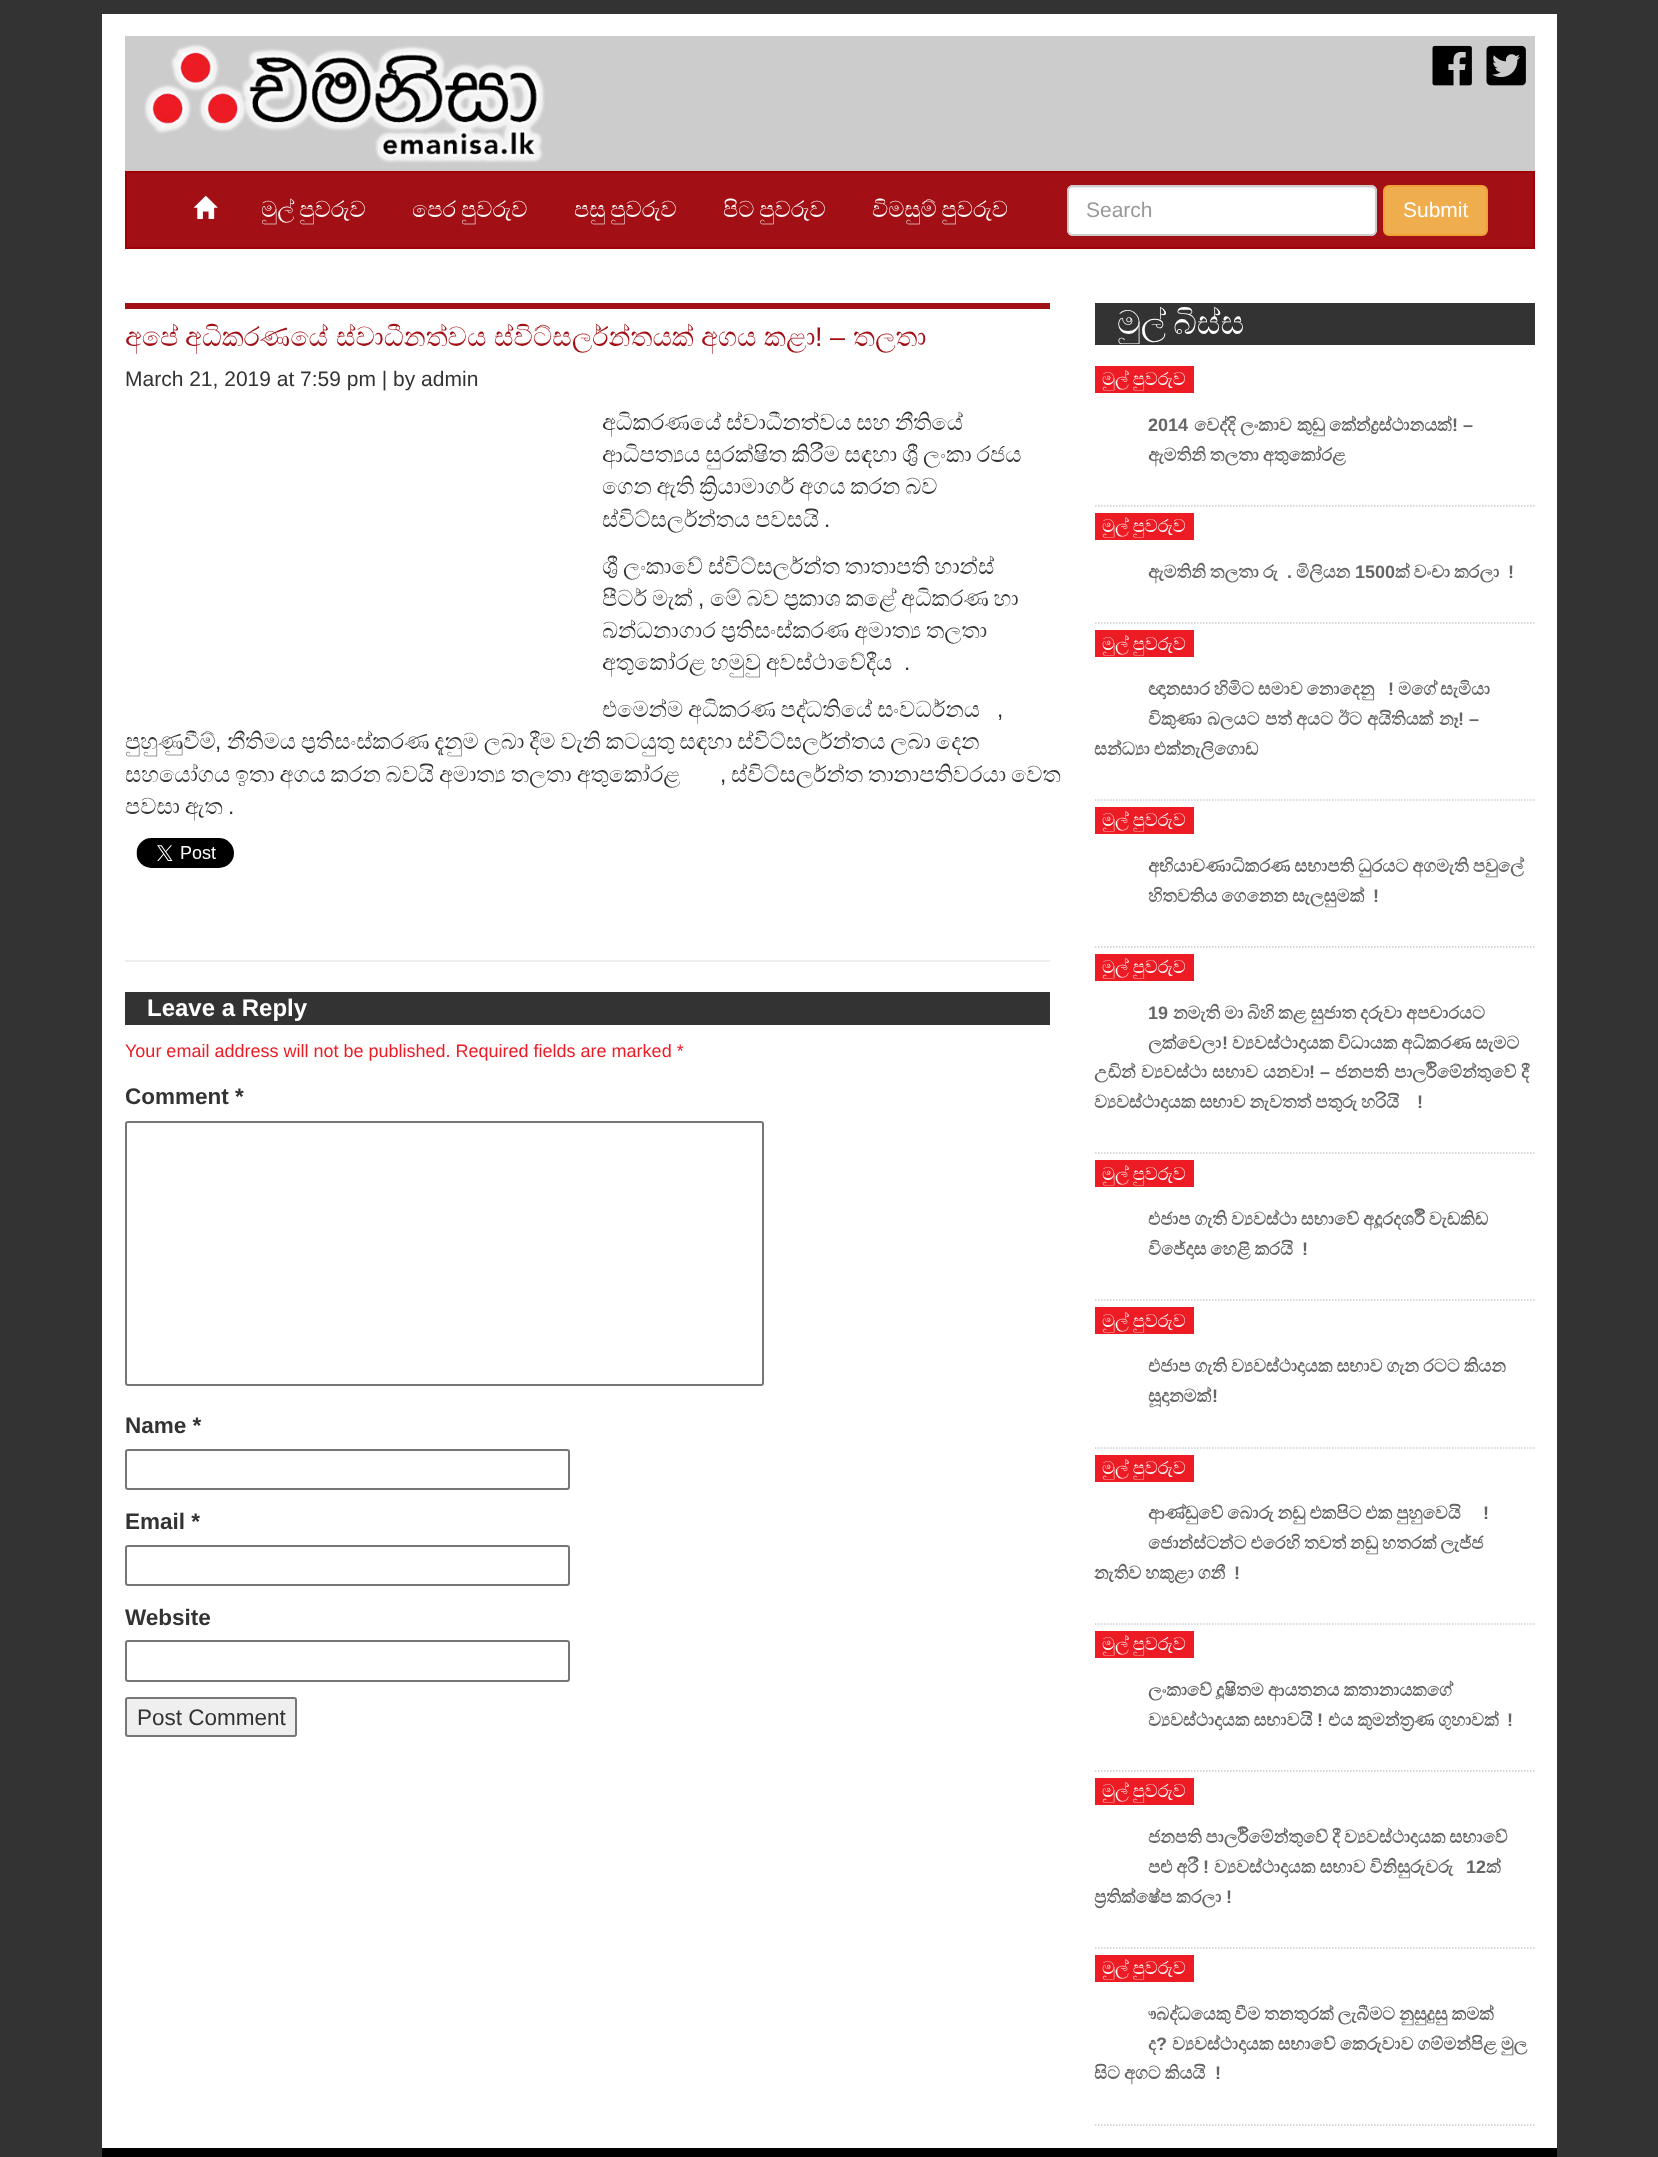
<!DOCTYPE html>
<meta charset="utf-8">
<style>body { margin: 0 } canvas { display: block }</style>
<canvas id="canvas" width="1658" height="2157"></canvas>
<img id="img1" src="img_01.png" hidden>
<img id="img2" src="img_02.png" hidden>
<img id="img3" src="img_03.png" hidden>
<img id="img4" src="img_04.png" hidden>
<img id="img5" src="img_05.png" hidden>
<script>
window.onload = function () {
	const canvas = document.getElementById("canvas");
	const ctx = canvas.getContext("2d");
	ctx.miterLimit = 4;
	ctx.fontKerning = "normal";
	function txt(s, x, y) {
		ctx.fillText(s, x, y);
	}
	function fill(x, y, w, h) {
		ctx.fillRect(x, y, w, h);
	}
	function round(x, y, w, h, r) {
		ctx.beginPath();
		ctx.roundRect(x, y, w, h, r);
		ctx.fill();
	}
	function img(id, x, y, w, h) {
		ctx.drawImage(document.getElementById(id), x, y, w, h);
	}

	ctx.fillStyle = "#333333";
	fill(0, 0, 1658, 2157);
	ctx.fillStyle = "#FFFFFF";
	fill(102, 14, 1455, 2134);
	ctx.fillStyle = "#CCCCCC";
	fill(125, 36, 1410, 135);
	img("img1", 144, 44, 401, 119);
	img("img2", 1432, 45, 40, 41);
	img("img3", 1486, 45, 40, 41);
	ctx.fillStyle = "#A20F15";
	ctx.beginPath();
	ctx.rect(126, 172, 1408, 76);
	ctx.fill();
	ctx.strokeStyle = "#A20007";
	ctx.lineWidth = 2;
	ctx.stroke();
	img("img4", 193, 195, 25, 24);
	ctx.fillStyle = "#FFFFFF";
	round(1067, 185, 310, 51, 6);
	ctx.fillStyle = "#ECECEC";
	ctx.beginPath();
	ctx.moveTo(1072, 188);
	ctx.lineTo(1371, 188);
	ctx.bezierCurveTo(1373, 188, 1376, 190, 1376, 192);
	ctx.bezierCurveTo(1376, 189, 1374, 186, 1371, 186);
	ctx.lineTo(1073, 186);
	ctx.bezierCurveTo(1070, 186, 1068, 189, 1068, 192);
	ctx.bezierCurveTo(1068, 190, 1070, 188, 1072, 188);
	ctx.closePath();
	ctx.fill();
	ctx.beginPath();
	ctx.roundRect(1068, 186, 308, 49, 5);
	ctx.strokeStyle = "#CCCCCC";
	ctx.stroke();
	ctx.fillStyle = "#F0AD4E";
	ctx.beginPath();
	ctx.roundRect(1384, 186, 103, 49, 5);
	ctx.fill();
	ctx.strokeStyle = "#EEA236";
	ctx.stroke();
	ctx.fillStyle = "#A20F15";
	fill(125, 303, 925, 6);
	img("img5", 136, 838, 98, 30);
	ctx.fillStyle = "#EEEEEE";
	fill(125, 960, 925, 2);
	ctx.fillStyle = "#333333";
	fill(125, 992, 925, 33);
	ctx.beginPath();
	ctx.roundRect(126, 1122, 637, 263, 2);
	ctx.strokeStyle = "#767676";
	ctx.stroke();
	ctx.beginPath();
	ctx.roundRect(126, 1450, 443, 39, 2);
	ctx.stroke();
	ctx.beginPath();
	ctx.roundRect(126, 1546, 443, 39, 2);
	ctx.stroke();
	ctx.beginPath();
	ctx.roundRect(126, 1641, 443, 40, 2);
	ctx.stroke();
	ctx.fillStyle = "#EFEFEF";
	ctx.beginPath();
	ctx.roundRect(126, 1698, 170, 38, 2);
	ctx.fill();
	ctx.stroke();
	ctx.fillStyle = "#333333";
	fill(1095, 303, 440, 42);
	ctx.beginPath();
	ctx.moveTo(1095, 506);
	ctx.lineTo(1534.5, 506);
	ctx.strokeStyle = "#CCCCCC";
	ctx.lineWidth = 1.5;
	ctx.setLineDash([1.5, 1.5]);
	ctx.stroke();
	ctx.fillStyle = "#ED1C24";
	fill(1095, 366, 99, 27);
	ctx.beginPath();
	ctx.moveTo(1095, 623);
	ctx.lineTo(1534.5, 623);
	ctx.stroke();
	fill(1095, 513, 99, 27);
	ctx.beginPath();
	ctx.moveTo(1095, 800);
	ctx.lineTo(1534.5, 800);
	ctx.stroke();
	fill(1095, 630, 99, 27);
	ctx.beginPath();
	ctx.moveTo(1095, 947);
	ctx.lineTo(1534.5, 947);
	ctx.stroke();
	fill(1095, 807, 99, 27);
	ctx.beginPath();
	ctx.moveTo(1095, 1153);
	ctx.lineTo(1534.5, 1153);
	ctx.stroke();
	fill(1095, 954, 99, 27);
	ctx.beginPath();
	ctx.moveTo(1095, 1300);
	ctx.lineTo(1534.5, 1300);
	ctx.stroke();
	fill(1095, 1160, 99, 27);
	ctx.beginPath();
	ctx.moveTo(1095, 1448);
	ctx.lineTo(1534.5, 1448);
	ctx.stroke();
	fill(1095, 1307, 99, 27);
	ctx.beginPath();
	ctx.moveTo(1095, 1624);
	ctx.lineTo(1534.5, 1624);
	ctx.stroke();
	fill(1095, 1455, 99, 27);
	ctx.beginPath();
	ctx.moveTo(1095, 1771);
	ctx.lineTo(1534.5, 1771);
	ctx.stroke();
	fill(1095, 1631, 99, 27);
	ctx.beginPath();
	ctx.moveTo(1095, 1948);
	ctx.lineTo(1534.5, 1948);
	ctx.stroke();
	fill(1095, 1778, 99, 27);
	ctx.beginPath();
	ctx.moveTo(1095, 2125);
	ctx.lineTo(1534.5, 2125);
	ctx.stroke();
	fill(1095, 1955, 99, 27);
	ctx.fillStyle = "#000000";
	fill(102, 2148, 1455, 9);
	ctx.wordSpacing = "-0.75px";
	ctx.font = "22.5px FreeSerif";
	ctx.fillStyle = "#FFFFFF";
	txt("මුල් පුවරුව", 261, 217);
	txt("පෙර පුවරුව", 412, 217);
	txt("පසු පුවරුව", 574, 217);
	txt("පිට පුවරුව", 723, 217);
	txt("විමසුම් පුවරුව", 872, 217);
	ctx.wordSpacing = "0px";
	ctx.font = "21px Liberation Sans";
	ctx.fillStyle = "#999999";
	txt("Search", 1086, 217);
	ctx.fillStyle = "#FFFFFF";
	txt("Submit", 1403, 217);
	ctx.font = "27px FreeSerif";
	ctx.fillStyle = "#A20F15";
	txt("අපේ", 125, 346);
	txt("අධිකරණයේ", 185, 346);
	txt("ස්වාධීනත්වය", 336, 346);
	txt("ස්විට්සර්ලන්තයක්", 494, 346);
	txt("අගය", 701, 346);
	txt("කළා", 764, 346);
	ctx.font = "27px Liberation Sans";
	txt("! –", 815, 346);
	ctx.font = "27px FreeSerif";
	txt("තලතා", 853, 346);
	ctx.font = "21px Liberation Sans";
	ctx.fillStyle = "#333333";
	txt("March 21, 2019 at 7:59 pm | by admin", 125, 386);
	ctx.wordSpacing = "-0.75px";
	ctx.font = "22.5px FreeSerif";
	txt("අධිකරණයේ ස්වාධීනත්වය සහ නීතියේ", 602, 430);
	txt("ආධිපත්‍යය සුරක්ෂිත කිරීම සඳහා ශ‍්‍රී ලංකා රජය", 602, 462);
	txt("ගෙන ඇති ක්‍රියාමාර්ග අගය කරන බව", 602, 494);
	txt("ස්විට්සර්ලන්තය පවසයි", 602, 527);
	ctx.wordSpacing = "0px";
	ctx.font = "22.5px Liberation Sans";
	txt(".", 824, 527);
	ctx.wordSpacing = "-0.75px";
	ctx.font = "22.5px FreeSerif";
	txt("ශ‍්‍රී ලංකාවේ ස්විට්සර්ලන්ත තාතාපති හාන්ස්", 602, 574);
	txt("පීටර් මැක්", 602, 606);
	ctx.wordSpacing = "0px";
	ctx.font = "22.5px Liberation Sans";
	txt(",", 698, 606);
	ctx.wordSpacing = "-0.75px";
	ctx.font = "22.5px FreeSerif";
	txt("මේ බව ප‍්‍රකාශ කළේ අධිකරණ හා", 710, 606);
	txt("බන්ධනාගාර ප‍්‍රතිසංස්කරණ අමාත්‍ය තලතා", 602, 638);
	txt("අතුකෝරළ හමුවු අවස්ථාවේදීය", 602, 670);
	ctx.wordSpacing = "0px";
	ctx.font = "22.5px Liberation Sans";
	txt(".", 904, 670);
	ctx.wordSpacing = "-0.75px";
	ctx.font = "22.5px FreeSerif";
	txt("එමෙන්ම අධිකරණ පද්ධතියේ සංවර්ධනය", 602, 717);
	ctx.wordSpacing = "0px";
	ctx.font = "22.5px Liberation Sans";
	txt(",", 997, 717);
	ctx.font = "22.5px FreeSerif";
	txt("පුහුණුවීම්", 125, 749);
	ctx.font = "22.5px Liberation Sans";
	txt(",", 215, 749);
	ctx.wordSpacing = "-0.75px";
	ctx.font = "22.5px FreeSerif";
	txt("නීතිමය ප‍්‍රතිසංස්කරණ දැනුම ලබා දීම වැනි කටයුතු සඳහා ස්විට්සර්ලන්තය ලබා දෙන", 227, 749);
	txt("සහයෝගය ඉතා අගය කරන බවයි අමාත්‍ය තලතා අතුකෝරළ", 125, 782);
	ctx.wordSpacing = "0px";
	ctx.font = "22.5px Liberation Sans";
	txt(",", 720, 782);
	ctx.wordSpacing = "-0.75px";
	ctx.font = "22.5px FreeSerif";
	txt("ස්විට්සර්ලන්ත තානාපතිවරයා වෙත", 731, 782);
	txt("පවසා ඇත", 125, 814);
	ctx.wordSpacing = "0px";
	ctx.font = "22.5px Liberation Sans";
	txt(".", 228, 814);
	ctx.font = "bold 24px Liberation Sans";
	ctx.fillStyle = "#FFFFFF";
	txt("Leave a Reply", 147, 1016);
	ctx.font = "18px Liberation Sans";
	ctx.fillStyle = "#ED1C24";
	txt("Your email address will not be published. Required fields are marked *", 125, 1057);
	ctx.font = "bold 22.5px Liberation Sans";
	ctx.fillStyle = "#333333";
	txt("Comment *", 125, 1104);
	txt("Name *", 125, 1433);
	txt("Email *", 125, 1529);
	txt("Website", 125, 1625);
	ctx.font = "22.5px Liberation Sans";
	txt("Post Comment", 137, 1725);
	ctx.wordSpacing = "-1px";
	ctx.font = "33px FreeSerif";
	ctx.fillStyle = "#FFFFFF";
	txt("මුල් බිස්ස", 1117, 334);
	ctx.wordSpacing = "-0.5px";
	ctx.font = "18px FreeSerif";
	txt("මුල් පුවරුව", 1102, 385);
	ctx.wordSpacing = "0px";
	ctx.font = "bold 18px Liberation Sans";
	ctx.fillStyle = "#666666";
	txt("2014", 1148, 431);
	ctx.font = "bold 18px FreeSerif";
	txt("වෙද්දි", 1194, 431);
	txt("ලංකාව", 1240, 431);
	txt("කුඩු", 1297, 431);
	txt("කේන්ද්‍රස්ථානයක්", 1329, 431);
	ctx.font = "bold 18px Liberation Sans";
	txt("! –", 1452, 431);
	ctx.wordSpacing = "-0.5px";
	ctx.font = "bold 18px FreeSerif";
	txt("ඇමතිනි තලතා අතුකෝරළ", 1148, 461);
	ctx.font = "18px FreeSerif";
	ctx.fillStyle = "#FFFFFF";
	txt("මුල් පුවරුව", 1102, 532);
	ctx.font = "bold 18px FreeSerif";
	ctx.fillStyle = "#666666";
	txt("ඇමතිනි තලතා රු", 1148, 578);
	ctx.wordSpacing = "0px";
	ctx.font = "bold 18px Liberation Sans";
	txt("1500", 1355, 578);
	ctx.wordSpacing = "-0.5px";
	ctx.font = "bold 18px FreeSerif";
	txt("ක් වංචා කරලා", 1395, 578);
	ctx.wordSpacing = "0px";
	ctx.font = "bold 18px Liberation Sans";
	txt("!", 1508, 578);
	txt(".", 1287, 578);
	ctx.font = "bold 18px FreeSerif";
	txt("මිලියන", 1296, 578);
	ctx.wordSpacing = "-0.5px";
	ctx.font = "18px FreeSerif";
	ctx.fillStyle = "#FFFFFF";
	txt("මුල් පුවරුව", 1102, 650);
	ctx.font = "bold 18px FreeSerif";
	ctx.fillStyle = "#666666";
	txt("ඥානසාර හිමිට සමාව නොදෙනු", 1148, 695);
	ctx.wordSpacing = "0px";
	ctx.font = "bold 18px Liberation Sans";
	txt("!", 1388, 695);
	ctx.wordSpacing = "-0.5px";
	ctx.font = "bold 18px FreeSerif";
	txt("මගේ සැමියා", 1398, 695);
	ctx.wordSpacing = "0px";
	txt("විකුණා", 1148, 725);
	txt("බලයට", 1207, 725);
	txt("පත්", 1265, 725);
	txt("අයට", 1296, 725);
	txt("ඊට", 1338, 725);
	txt("අයිතියක්", 1367, 725);
	txt("නෑ", 1439, 725);
	ctx.font = "bold 18px Liberation Sans";
	txt("! –", 1458, 725);
	ctx.wordSpacing = "-0.5px";
	ctx.font = "bold 18px FreeSerif";
	txt("සන්ධ්‍යා එක්නැලිගොඩ", 1094, 755);
	ctx.font = "18px FreeSerif";
	ctx.fillStyle = "#FFFFFF";
	txt("මුල් පුවරුව", 1102, 826);
	ctx.font = "bold 18px FreeSerif";
	ctx.fillStyle = "#666666";
	txt("අභියාචණාධිකරණ සභාපති ධුරයට අගමැති පවුලේ", 1148, 872);
	txt("හිතවතිය ගෙනෙන සැලසුමක්", 1148, 902);
	ctx.wordSpacing = "0px";
	ctx.font = "bold 18px Liberation Sans";
	txt("!", 1373, 902);
	ctx.wordSpacing = "-0.5px";
	ctx.font = "18px FreeSerif";
	ctx.fillStyle = "#FFFFFF";
	txt("මුල් පුවරුව", 1102, 973);
	ctx.wordSpacing = "0px";
	ctx.font = "bold 18px Liberation Sans";
	ctx.fillStyle = "#666666";
	txt("19", 1148, 1019);
	ctx.wordSpacing = "-0.5px";
	ctx.font = "bold 18px FreeSerif";
	txt("නමැති මා බිහි කළ සුජාත දරුවා අපචාරයට", 1173, 1019);
	ctx.wordSpacing = "0px";
	txt("ලක්වෙලා", 1148, 1049);
	ctx.font = "bold 18px Liberation Sans";
	txt("!", 1222, 1049);
	ctx.wordSpacing = "-0.5px";
	ctx.font = "bold 18px FreeSerif";
	txt("ව්‍යවස්ථාදායක විධායක අධිකරණ සැමට", 1232, 1049);
	ctx.wordSpacing = "0px";
	txt("උඩින්", 1094, 1078);
	txt("ව්‍යවස්ථා", 1141, 1078);
	txt("සභාව", 1212, 1078);
	txt("යනවා", 1263, 1078);
	ctx.font = "bold 18px Liberation Sans";
	txt("! –", 1309, 1078);
	ctx.font = "bold 18px FreeSerif";
	txt("ජනපති", 1335, 1078);
	txt("පාර්ලිමේන්තුවේ", 1394, 1078);
	txt("දී", 1521, 1078);
	ctx.wordSpacing = "-0.5px";
	txt("ව්‍යවස්ථාදායක සභාව නැවතත් පතුරු හරියි", 1094, 1108);
	ctx.wordSpacing = "0px";
	ctx.font = "bold 18px Liberation Sans";
	txt("!", 1417, 1108);
	ctx.wordSpacing = "-0.5px";
	ctx.font = "18px FreeSerif";
	ctx.fillStyle = "#FFFFFF";
	txt("මුල් පුවරුව", 1102, 1180);
	ctx.font = "bold 18px FreeSerif";
	ctx.fillStyle = "#666666";
	txt("එජාප ගැති ව්‍යවස්ථා සභාවේ අදූරදර්ශී වැඩකිඩ", 1148, 1225);
	txt("විජේදාස හෙළි කරයි", 1148, 1255);
	ctx.wordSpacing = "0px";
	ctx.font = "bold 18px Liberation Sans";
	txt("!", 1302, 1255);
	ctx.wordSpacing = "-0.5px";
	ctx.font = "18px FreeSerif";
	ctx.fillStyle = "#FFFFFF";
	txt("මුල් පුවරුව", 1102, 1327);
	ctx.font = "bold 18px FreeSerif";
	ctx.fillStyle = "#666666";
	txt("එජාප ගැති ව්‍යවස්ථාදායක සභාව ගැන රටට කියන", 1148, 1372);
	ctx.wordSpacing = "0px";
	txt("සූදානමක්", 1148, 1402);
	ctx.font = "bold 18px Liberation Sans";
	txt("!", 1212, 1402);
	ctx.wordSpacing = "-0.5px";
	ctx.font = "18px FreeSerif";
	ctx.fillStyle = "#FFFFFF";
	txt("මුල් පුවරුව", 1102, 1474);
	ctx.font = "bold 18px FreeSerif";
	ctx.fillStyle = "#666666";
	txt("ආණ්ඩුවේ බොරු නඩු එකපිට එක පුහුවෙයි", 1148, 1519);
	ctx.wordSpacing = "0px";
	ctx.font = "bold 18px Liberation Sans";
	txt("!", 1483, 1519);
	ctx.wordSpacing = "-0.5px";
	ctx.font = "bold 18px FreeSerif";
	txt("ජොන්ස්ටන්ට එරෙහි තවත් නඩු හතරක් ලැජ්ජ", 1148, 1549);
	txt("නැතිව හකුළා ගනී", 1094, 1579);
	ctx.wordSpacing = "0px";
	ctx.font = "bold 18px Liberation Sans";
	txt("!", 1234, 1579);
	ctx.wordSpacing = "-0.5px";
	ctx.font = "18px FreeSerif";
	ctx.fillStyle = "#FFFFFF";
	txt("මුල් පුවරුව", 1102, 1650);
	ctx.font = "bold 18px FreeSerif";
	ctx.fillStyle = "#666666";
	txt("ලංකාවේ දූෂිතම ආයතනය කතානායකගේ", 1148, 1696);
	txt("ව්‍යවස්ථාදායක සභාවයි", 1148, 1726);
	ctx.wordSpacing = "0px";
	ctx.font = "bold 18px Liberation Sans";
	txt("!", 1317, 1726);
	ctx.wordSpacing = "-0.5px";
	ctx.font = "bold 18px FreeSerif";
	txt("එය කුමන්ත්‍රණ ගුහාවක්", 1328, 1726);
	ctx.wordSpacing = "0px";
	ctx.font = "bold 18px Liberation Sans";
	txt("!", 1507, 1726);
	ctx.wordSpacing = "-0.5px";
	ctx.font = "18px FreeSerif";
	ctx.fillStyle = "#FFFFFF";
	txt("මුල් පුවරුව", 1102, 1797);
	ctx.font = "bold 18px FreeSerif";
	ctx.fillStyle = "#666666";
	txt("ජනපති පාර්ලිමේන්තුවේ දී ව්‍යවස්ථාදායක සභාවේ", 1148, 1843);
	txt("පළු අරී", 1148, 1873);
	ctx.wordSpacing = "0px";
	ctx.font = "bold 18px Liberation Sans";
	txt("!", 1203, 1873);
	ctx.wordSpacing = "-0.5px";
	ctx.font = "bold 18px FreeSerif";
	txt("ව්‍යවස්ථාදායක සභාව විනිසුරුවරු", 1214, 1873);
	ctx.wordSpacing = "0px";
	ctx.font = "bold 18px Liberation Sans";
	txt("12", 1466, 1873);
	ctx.font = "bold 18px FreeSerif";
	txt("ක්", 1486, 1873);
	ctx.wordSpacing = "-0.5px";
	txt("ප්‍රතික්ෂේප කරලා", 1094, 1903);
	ctx.wordSpacing = "0px";
	ctx.font = "bold 18px Liberation Sans";
	txt("!", 1226, 1903);
	ctx.wordSpacing = "-0.5px";
	ctx.font = "18px FreeSerif";
	ctx.fillStyle = "#FFFFFF";
	txt("මුල් පුවරුව", 1102, 1974);
	ctx.font = "bold 18px FreeSerif";
	ctx.fillStyle = "#666666";
	txt("බෞද්ධයෙකු වීම තනතුරක් ලැබීමට නුසුදුසු කමක්", 1148, 2020);
	ctx.wordSpacing = "0px";
	txt("ද", 1148, 2050);
	ctx.font = "bold 18px Liberation Sans";
	txt("?", 1156, 2050);
	ctx.wordSpacing = "-0.5px";
	ctx.font = "bold 18px FreeSerif";
	txt("ව්‍යවස්ථාදායක සභාවේ කෙරුවාව ගම්මන්පිළ මුල", 1172, 2050);
	txt("සිට අගට කියයි", 1094, 2079);
	ctx.wordSpacing = "0px";
	ctx.font = "bold 18px Liberation Sans";
	txt("!", 1215, 2079);
};
</script>
